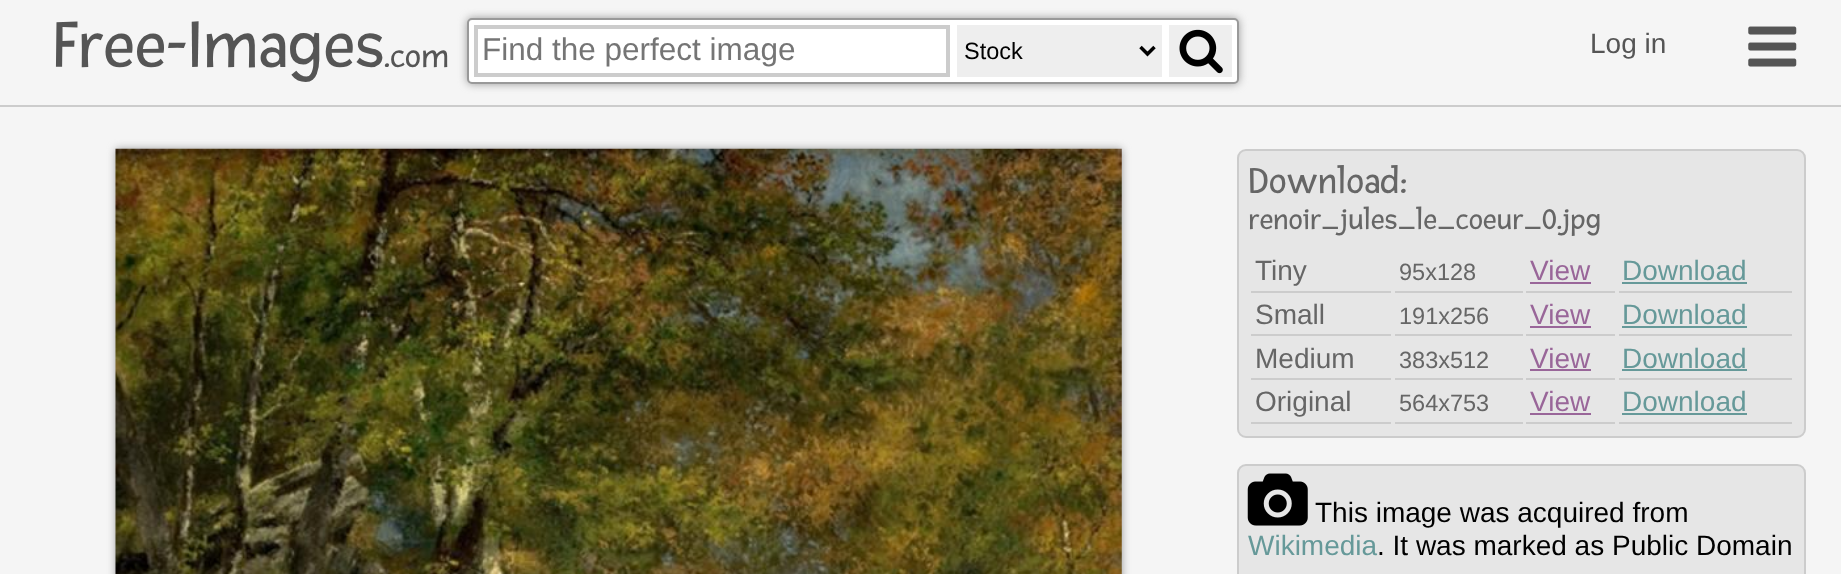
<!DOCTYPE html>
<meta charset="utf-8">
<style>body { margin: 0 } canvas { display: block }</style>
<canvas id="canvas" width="1841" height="574"></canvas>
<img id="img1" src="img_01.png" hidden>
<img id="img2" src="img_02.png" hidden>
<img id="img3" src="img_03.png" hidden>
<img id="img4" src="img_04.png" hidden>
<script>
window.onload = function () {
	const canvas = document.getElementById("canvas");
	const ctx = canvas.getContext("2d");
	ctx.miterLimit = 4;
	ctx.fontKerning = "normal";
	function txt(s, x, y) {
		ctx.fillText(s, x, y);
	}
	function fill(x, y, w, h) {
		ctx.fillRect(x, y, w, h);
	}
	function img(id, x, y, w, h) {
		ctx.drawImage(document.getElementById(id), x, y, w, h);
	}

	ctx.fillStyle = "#F5F5F5";
	fill(0, 0, 1841, 574);
	ctx.fillStyle = "#CCCCCC";
	fill(0, 105, 1841, 2);
	ctx.fillStyle = "#999999";
	ctx.filter = "blur(4.5px)";
	ctx.beginPath();
	ctx.roundRect(467, 18, 772, 66, 5);
	ctx.fill();
	ctx.filter = "none";
	ctx.fillStyle = "#FFFFFF";
	ctx.beginPath();
	ctx.roundRect(468, 19, 770, 64, 4);
	ctx.fill();
	ctx.strokeStyle = "#999999";
	ctx.lineWidth = 2;
	ctx.stroke();
	ctx.strokeStyle = "#CCCCCC";
	ctx.lineWidth = 4;
	ctx.strokeRect(476, 27, 472, 48);
	ctx.fillStyle = "#EEEEEE";
	fill(957, 25, 205, 52);
	ctx.beginPath();
	ctx.moveTo(1140.5, 47);
	ctx.lineTo(1147.5, 54);
	ctx.lineTo(1154.5, 47);
	ctx.strokeStyle = "#000000";
	ctx.lineWidth = 3.5;
	ctx.stroke();
	fill(1169, 25, 63, 52);
	img("img1", 1179, 29, 44, 45);
	img("img2", 1748, 26, 49, 41);
	ctx.fillStyle = "#999999";
	ctx.filter = "blur(4.5px)";
	ctx.beginPath();
	ctx.rect(116, 149, 1006, 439);
	ctx.fill();
	ctx.filter = "none";
	img("img3", 115, 148, 1007, 426);
	ctx.fillStyle = "#E6E6E6";
	ctx.beginPath();
	ctx.roundRect(1238, 150, 567, 287, 8);
	ctx.fill();
	ctx.strokeStyle = "#CCCCCC";
	ctx.lineWidth = 2;
	ctx.stroke();
	ctx.fillStyle = "#CCCCCC";
	fill(1251, 291, 140, 2);
	fill(1395, 291, 128, 2);
	fill(1526, 291, 89, 2);
	ctx.fillStyle = "#996699";
	fill(1530, 282, 61, 2);
	ctx.fillStyle = "#CCCCCC";
	fill(1619, 291, 173, 2);
	ctx.fillStyle = "#669999";
	fill(1622, 282, 125, 2);
	ctx.fillStyle = "#CCCCCC";
	fill(1251, 334, 140, 2);
	fill(1395, 334, 128, 2);
	fill(1526, 334, 89, 2);
	ctx.fillStyle = "#996699";
	fill(1530, 326, 61, 2);
	ctx.fillStyle = "#CCCCCC";
	fill(1619, 334, 173, 2);
	ctx.fillStyle = "#669999";
	fill(1622, 326, 125, 2);
	ctx.fillStyle = "#CCCCCC";
	fill(1251, 378, 140, 2);
	fill(1395, 378, 128, 2);
	fill(1526, 378, 89, 2);
	ctx.fillStyle = "#996699";
	fill(1530, 369, 61, 2);
	ctx.fillStyle = "#CCCCCC";
	fill(1619, 378, 173, 2);
	ctx.fillStyle = "#669999";
	fill(1622, 369, 125, 2);
	ctx.fillStyle = "#CCCCCC";
	fill(1251, 422, 140, 2);
	fill(1395, 422, 128, 2);
	fill(1526, 422, 89, 2);
	ctx.fillStyle = "#996699";
	fill(1530, 413, 61, 2);
	ctx.fillStyle = "#CCCCCC";
	fill(1619, 422, 173, 2);
	ctx.fillStyle = "#669999";
	fill(1622, 413, 125, 2);
	ctx.fillStyle = "#E6E6E6";
	ctx.beginPath();
	ctx.roundRect(1238, 465, 567, 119, 8);
	ctx.fill();
	ctx.stroke();
	img("img4", 1247, 473, 61, 53);
	ctx.font = "70px Fresca";
	ctx.fillStyle = "#555555";
	txt("Free-Images", 53, 67);
	ctx.font = "35px Fresca";
	txt(".com", 384, 67);
	ctx.font = "31.5px Liberation Sans";
	ctx.fillStyle = "#757575";
	txt("Find the perfect image", 482, 60);
	ctx.font = "23.5px Liberation Sans";
	ctx.fillStyle = "#000000";
	txt("Stock", 964, 59);
	ctx.font = "28px Liberation Sans";
	ctx.fillStyle = "#555555";
	txt("Log in", 1590, 53);
	ctx.font = "38.5px Fresca";
	ctx.fillStyle = "#666666";
	txt("Download:", 1248, 193);
	ctx.font = "30.75px Fresca";
	txt("renoir_jules_le_coeur_0.jpg", 1248, 229);
	ctx.font = "28px Liberation Sans";
	txt("Tiny", 1255, 280);
	ctx.font = "23.5px Liberation Sans";
	txt("95x128", 1399, 280);
	ctx.font = "28px Liberation Sans";
	ctx.fillStyle = "#996699";
	txt("View", 1530, 280);
	ctx.fillStyle = "#669999";
	txt("Download", 1622, 280);
	ctx.fillStyle = "#666666";
	txt("Small", 1255, 324);
	ctx.font = "23.5px Liberation Sans";
	txt("191x256", 1399, 324);
	ctx.font = "28px Liberation Sans";
	ctx.fillStyle = "#996699";
	txt("View", 1530, 324);
	ctx.fillStyle = "#669999";
	txt("Download", 1622, 324);
	ctx.fillStyle = "#666666";
	txt("Medium", 1255, 368);
	ctx.font = "23.5px Liberation Sans";
	txt("383x512", 1399, 368);
	ctx.font = "28px Liberation Sans";
	ctx.fillStyle = "#996699";
	txt("View", 1530, 368);
	ctx.fillStyle = "#669999";
	txt("Download", 1622, 368);
	ctx.fillStyle = "#666666";
	txt("Original", 1255, 411);
	ctx.font = "23.5px Liberation Sans";
	txt("564x753", 1399, 411);
	ctx.font = "28px Liberation Sans";
	ctx.fillStyle = "#996699";
	txt("View", 1530, 411);
	ctx.fillStyle = "#669999";
	txt("Download", 1622, 411);
	ctx.fillStyle = "#000000";
	txt("This image was acquired from", 1315, 522);
	ctx.fillStyle = "#669999";
	txt("Wikimedia", 1248, 555);
	ctx.fillStyle = "#000000";
	txt(". It was marked as Public Domain", 1377, 555);
};
</script>
